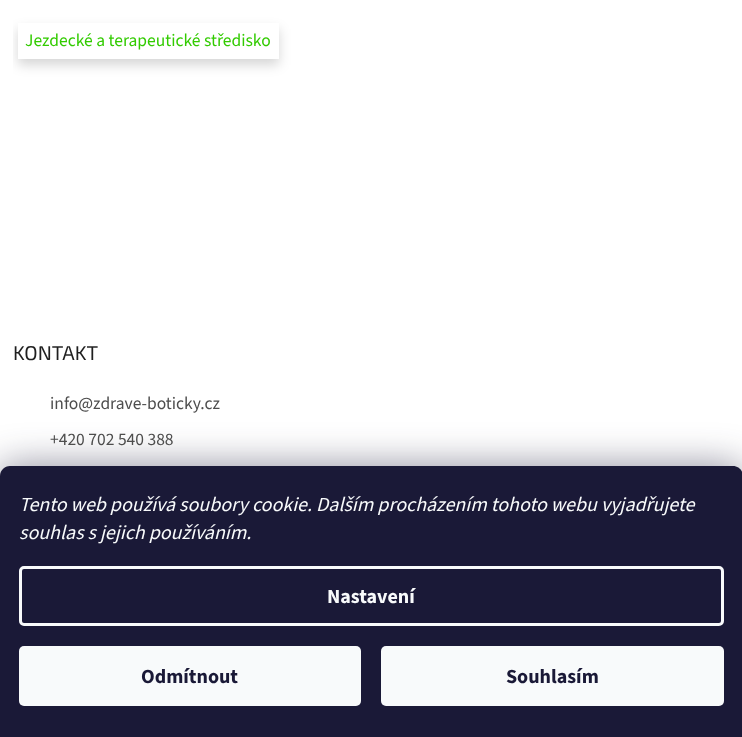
<!DOCTYPE html>
<meta charset="utf-8">
<style>body { margin: 0 } canvas { display: block }</style>
<canvas id="canvas" width="742" height="737"></canvas>
<script>
window.onload = function () {
	const canvas = document.getElementById("canvas");
	const ctx = canvas.getContext("2d");
	ctx.miterLimit = 4;
	ctx.fontKerning = "normal";
	function txt(s, x, y) {
		ctx.fillText(s, x, y);
	}
	function fill(x, y, w, h) {
		ctx.fillRect(x, y, w, h);
	}
	function round(x, y, w, h, r) {
		ctx.beginPath();
		ctx.roundRect(x, y, w, h, r);
		ctx.fill();
	}

	ctx.fillStyle = "#FFFFFF";
	fill(0, 0, 742, 737);
	ctx.save();
	ctx.beginPath();
	ctx.rect(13, 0, 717, 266);
	ctx.clip();
	ctx.beginPath();
	ctx.moveTo(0, 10);
	ctx.lineTo(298, 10);
	ctx.lineTo(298, 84);
	ctx.lineTo(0, 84);
	ctx.closePath();
	ctx.moveTo(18, 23);
	ctx.lineTo(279, 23);
	ctx.lineTo(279, 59);
	ctx.lineTo(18, 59);
	ctx.closePath();
	ctx.clip("evenodd");
	ctx.fillStyle = "rgba(0, 0, 0, 0.16)";
	ctx.filter = "blur(6px)";
	ctx.beginPath();
	ctx.rect(18, 29, 261, 36);
	ctx.fill();
	ctx.filter = "none";
	ctx.restore();
	ctx.fillStyle = "rgba(255, 255, 255, 0.9)";
	fill(18, 29, 261, 30);
	ctx.fillStyle = "rgba(27, 25, 57, 0.5)";
	ctx.filter = "blur(19px)";
	ctx.beginPath();
	ctx.roundRect(0, 466, 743, 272, 10);
	ctx.fill();
	ctx.filter = "none";
	ctx.fillStyle = "#1A1937";
	ctx.beginPath();
	ctx.moveTo(10, 466);
	ctx.lineTo(733, 466);
	ctx.bezierCurveTo(738.5, 466, 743, 470.5, 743, 476);
	ctx.lineTo(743, 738);
	ctx.lineTo(0, 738);
	ctx.lineTo(0, 476);
	ctx.bezierCurveTo(0, 470.5, 4.5, 466, 10, 466);
	ctx.closePath();
	ctx.fill();
	ctx.beginPath();
	ctx.roundRect(20.5, 567.5, 702, 57, 3.5);
	ctx.strokeStyle = "#F8FAFB";
	ctx.lineWidth = 3;
	ctx.stroke();
	ctx.fillStyle = "#F8FAFB";
	round(19, 646, 342, 60, 5);
	round(381, 646, 343, 60, 5);
	ctx.font = "17.5px 'Source Sans 3'";
	ctx.fillStyle = "#32CB00";
	txt("Jezdecké a terapeutické středisko", 25, 46);
	ctx.font = "20px 'Exo 2'";
	ctx.fillStyle = "#1F1F1F";
	txt("KONTAKT", 13, 360);
	ctx.font = "17.5px 'Source Sans 3'";
	ctx.fillStyle = "#4D4D4D";
	txt("info@zdrave-boticky.cz", 50, 409);
	txt("+420 702 540 388", 50, 445);
	ctx.font = "italic 20px 'Source Sans 3'";
	ctx.fillStyle = "#F8FAFB";
	txt("Tento web používá soubory cookie. Dalším procházením tohoto webu vyjadřujete", 19, 511);
	txt("souhlas s jejich používáním.", 19, 539);
	ctx.font = "bold 20px 'Source Sans 3'";
	txt("Nastavení", 327, 603);
	ctx.fillStyle = "#1A1937";
	txt("Odmítnout", 141, 683);
	txt("Souhlasím", 506, 683);
};
</script>
